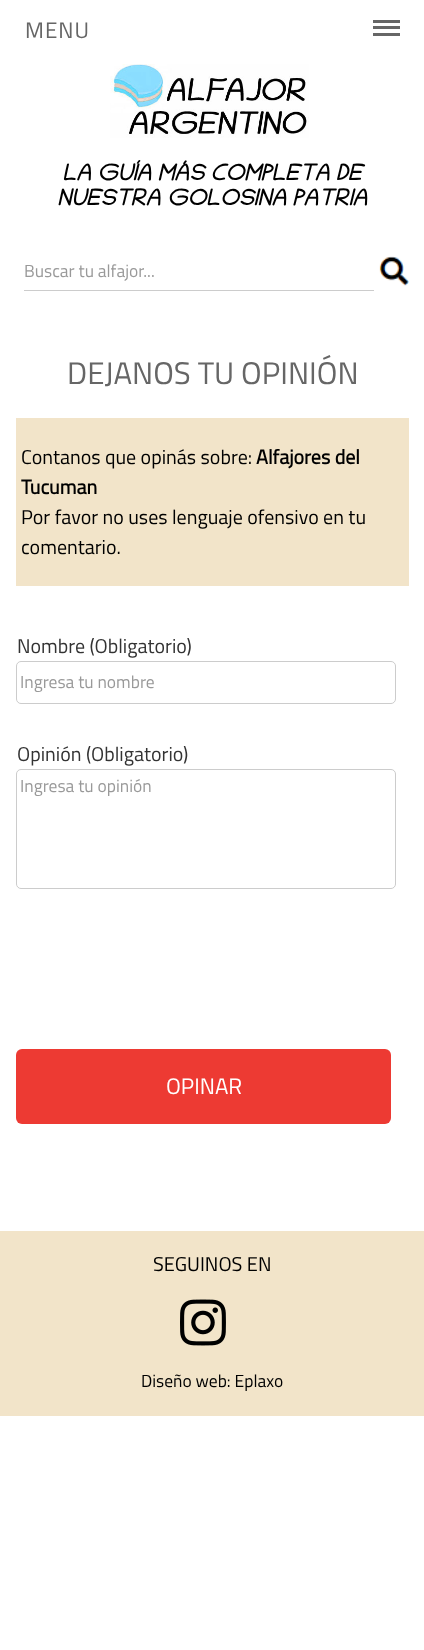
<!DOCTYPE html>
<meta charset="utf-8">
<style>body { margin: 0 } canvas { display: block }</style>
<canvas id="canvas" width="424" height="1650"></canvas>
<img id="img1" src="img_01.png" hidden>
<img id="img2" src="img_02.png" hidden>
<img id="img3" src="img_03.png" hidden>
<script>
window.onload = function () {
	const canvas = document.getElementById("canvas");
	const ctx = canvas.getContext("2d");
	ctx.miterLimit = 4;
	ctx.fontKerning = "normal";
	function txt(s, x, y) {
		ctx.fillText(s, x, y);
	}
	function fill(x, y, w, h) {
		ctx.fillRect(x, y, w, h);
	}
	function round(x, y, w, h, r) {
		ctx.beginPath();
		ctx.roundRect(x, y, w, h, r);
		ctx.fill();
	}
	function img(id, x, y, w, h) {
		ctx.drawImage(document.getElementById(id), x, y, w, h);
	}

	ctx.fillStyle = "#FFFFFF";
	fill(0, 0, 424, 1650);
	ctx.fillStyle = "#666666";
	fill(373, 20, 27, 3);
	fill(373, 26, 27, 3);
	fill(373, 33, 27, 3);
	img("img1", 110, 64, 199, 74);
	ctx.fillStyle = "#CCCCCC";
	fill(24, 290, 350, 1);
	img("img2", 379, 256, 30, 30);
	ctx.fillStyle = "#F2E4C9";
	fill(16, 418, 393, 168);
	ctx.beginPath();
	ctx.roundRect(16.5, 661.5, 379, 42, 4.5);
	ctx.strokeStyle = "#CCCCCC";
	ctx.stroke();
	ctx.beginPath();
	ctx.roundRect(16.5, 769.5, 379, 119, 4.5);
	ctx.stroke();
	ctx.fillStyle = "#ED3A33";
	round(16, 1049, 375, 75, 6);
	ctx.fillStyle = "#F2E4C9";
	fill(0, 1231, 424, 185);
	img("img3", 180, 1299, 46, 47);
	ctx.letterSpacing = "1px";
	ctx.font = "22.5px Titillium Web";
	ctx.fillStyle = "#666666";
	txt("MENU", 25, 38);
	ctx.letterSpacing = "0px";
	ctx.font = "italic bold 22.5px Chilanka";
	ctx.fillStyle = "#000000";
	txt("LA GUÍA MÁS COMPLETA DE", 62, 180);
	txt("NUESTRA GOLOSINA PATRIA", 57, 205);
	ctx.font = "17.5px Titillium Web";
	ctx.fillStyle = "#999999";
	txt("Buscar tu alfajor...", 24, 277);
	ctx.font = "31.25px Titillium Web";
	ctx.fillStyle = "#666666";
	txt("DEJANOS TU OPINIÓN", 67, 384);
	ctx.font = "20px Titillium Web";
	ctx.fillStyle = "#000000";
	txt("Contanos que opinás sobre:", 21, 464);
	ctx.font = "bold 20px Titillium Web";
	txt("Alfajores del", 256, 464);
	txt("Tucuman", 21, 494);
	ctx.font = "20px Titillium Web";
	txt("Por favor no uses lenguaje ofensivo en tu", 21, 524);
	txt("comentario.", 21, 554);
	ctx.fillStyle = "#333333";
	txt("Nombre (Obligatorio)", 17, 653);
	ctx.font = "17.5px Titillium Web";
	ctx.fillStyle = "#999999";
	txt("Ingresa tu nombre", 20, 688);
	ctx.font = "20px Titillium Web";
	ctx.fillStyle = "#333333";
	txt("Opinión (Obligatorio)", 17, 761);
	ctx.font = "17.5px Titillium Web";
	ctx.fillStyle = "#999999";
	txt("Ingresa tu opinión", 20, 792);
	ctx.font = "22.5px Titillium Web";
	ctx.fillStyle = "#FFFFFF";
	txt("OPINAR", 166, 1094);
	ctx.font = "20px Titillium Web";
	ctx.fillStyle = "#000000";
	txt("SEGUINOS EN", 153, 1271);
	ctx.font = "17.5px Titillium Web";
	txt("Diseño web: Eplaxo", 141, 1387);
};
</script>
